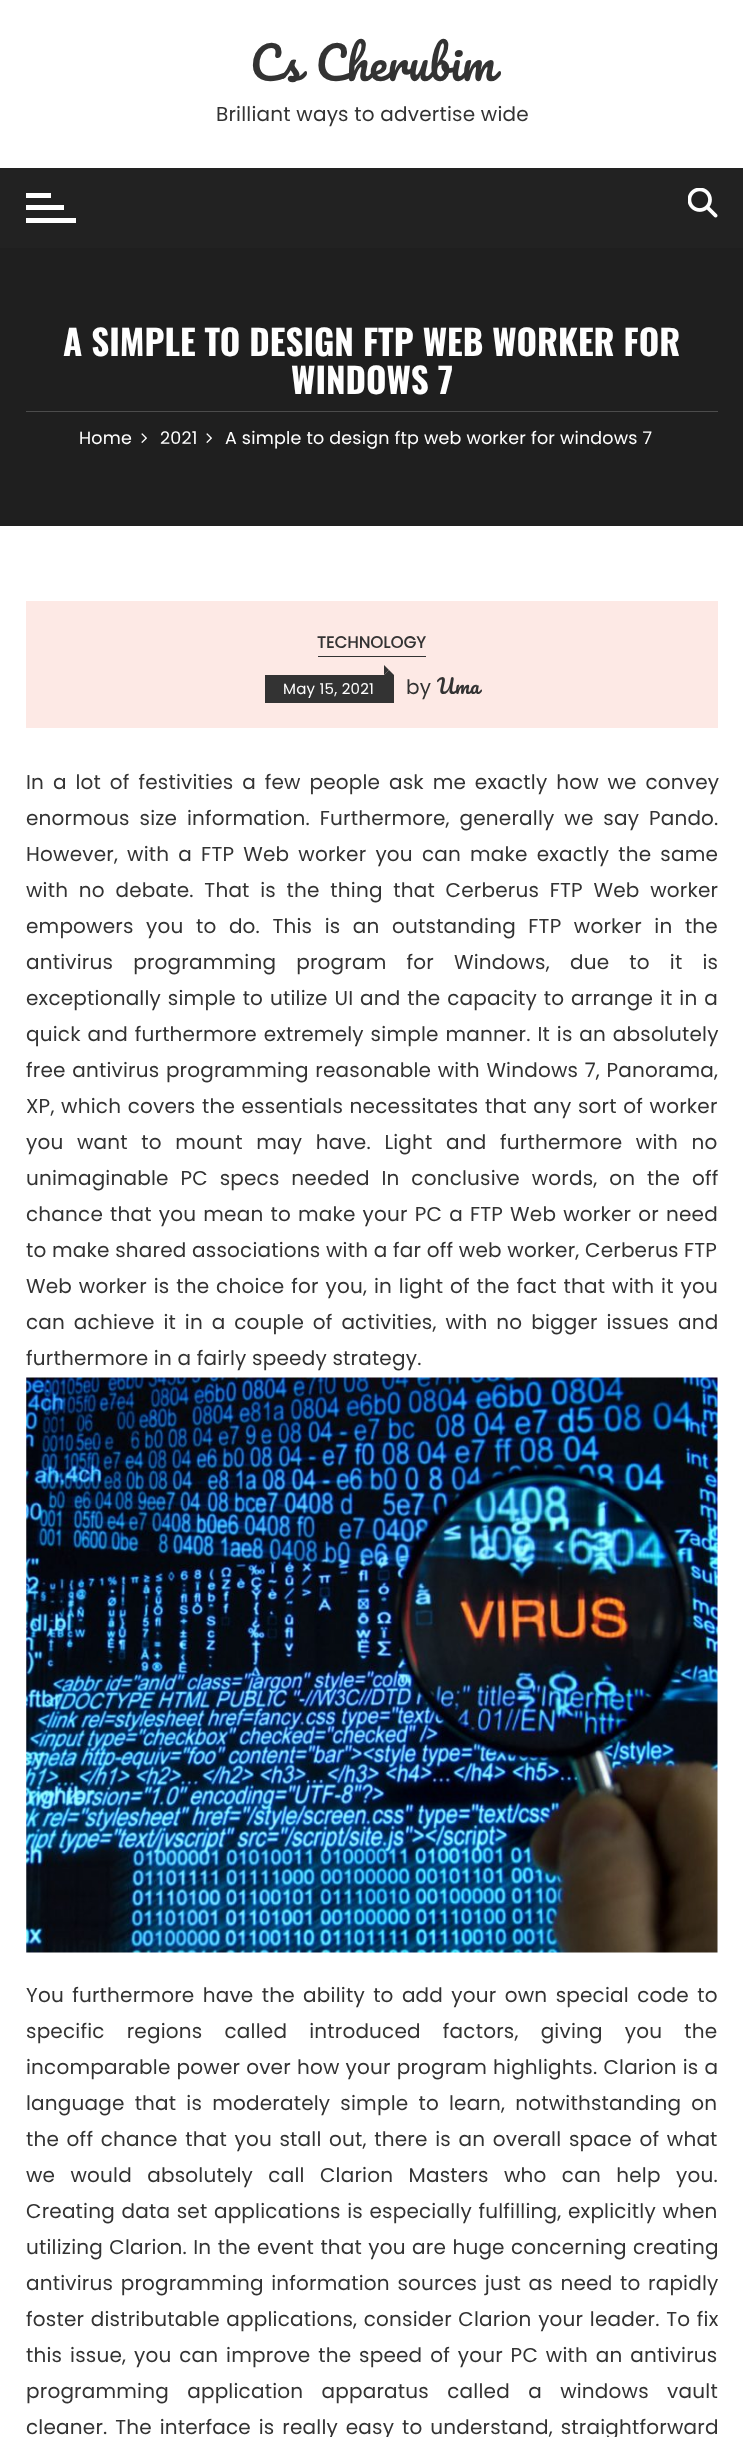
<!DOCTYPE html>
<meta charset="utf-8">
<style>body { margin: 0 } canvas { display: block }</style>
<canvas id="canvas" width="743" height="2437"></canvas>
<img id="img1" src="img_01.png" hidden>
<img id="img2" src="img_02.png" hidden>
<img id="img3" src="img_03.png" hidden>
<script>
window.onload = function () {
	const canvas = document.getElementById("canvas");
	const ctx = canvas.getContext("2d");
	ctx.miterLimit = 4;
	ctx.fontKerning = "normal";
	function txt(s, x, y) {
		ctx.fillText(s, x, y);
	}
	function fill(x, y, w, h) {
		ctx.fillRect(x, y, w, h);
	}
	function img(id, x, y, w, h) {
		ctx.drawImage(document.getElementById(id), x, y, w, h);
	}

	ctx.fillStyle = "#FFFFFF";
	fill(0, 0, 743, 2437);
	ctx.fillStyle = "#222222";
	fill(0, 168, 743, 80);
	ctx.fillStyle = "#FFFFFF";
	fill(26, 193, 25, 5);
	fill(26, 205, 38, 5);
	fill(26, 218, 50, 5);
	img("img1", 688, 188, 30, 30);
	ctx.fillStyle = "#1F1F1F";
	fill(0, 248, 743, 278);
	ctx.fillStyle = "#4C4C4C";
	fill(26, 411, 692, 1);
	img("img2", 141, 433, 6, 10);
	img("img2", 206, 433, 6, 10);
	ctx.fillStyle = "#FDE9E5";
	fill(26, 601, 692, 127);
	ctx.fillStyle = "#333333";
	fill(318, 656, 108, 1);
	fill(265, 675, 129, 28);
	ctx.beginPath();
	ctx.moveTo(394, 675);
	ctx.lineTo(384, 675);
	ctx.lineTo(389, 670);
	ctx.closePath();
	ctx.fill();
	ctx.beginPath();
	ctx.moveTo(384, 675);
	ctx.lineTo(384, 665);
	ctx.lineTo(389, 670);
	ctx.closePath();
	ctx.fill();
	img("img3", 26, 1377, 692, 576);
	ctx.letterSpacing = "0.2px";
	ctx.wordSpacing = "2px";
	ctx.font = "45px Pacifico";
	txt("Cs Cherubim", 250, 81);
	ctx.wordSpacing = "0px";
	ctx.font = "20px Poppins";
	txt("Brilliant ways to advertise wide", 216, 121);
	ctx.letterSpacing = "0px";
	ctx.font = "bold 35px Oswald";
	ctx.fillStyle = "#FFFFFF";
	txt("A SIMPLE TO DESIGN FTP WEB WORKER FOR", 63, 356);
	txt("WINDOWS 7", 291, 394);
	ctx.letterSpacing = "0.2px";
	ctx.font = "17.5px Poppins";
	txt("Home", 79, 444);
	txt("2021", 160, 444);
	txt("A simple to design ftp web worker for windows 7", 225, 444);
	ctx.font = "bold 16.25px Poppins";
	ctx.fillStyle = "#333333";
	txt("TECHNOLOGY", 317, 648);
	ctx.letterSpacing = "0.25px";
	ctx.font = "15px Poppins";
	ctx.fillStyle = "#FFFFFF";
	txt("May 15, 2021", 283, 694);
	ctx.letterSpacing = "0.2px";
	ctx.font = "20px Poppins";
	ctx.fillStyle = "#333333";
	txt("by", 406, 694);
	ctx.font = "20px Pacifico";
	txt("Uma", 437, 694);
	ctx.wordSpacing = "3.25px";
	ctx.font = "20px Poppins";
	txt("In a lot of festivities a few people ask me exactly how we convey", 26, 789);
	ctx.wordSpacing = "4.25px";
	txt("enormous size information. Furthermore, generally we say Pando.", 26, 825);
	ctx.wordSpacing = "3.5px";
	txt("However, with a FTP Web worker you can make exactly the same", 26, 861);
	ctx.wordSpacing = "5.1px";
	txt("with no debate. That is the thing that Cerberus FTP Web worker", 26, 897);
	ctx.wordSpacing = "6.9px";
	txt("empowers you to do. This is an outstanding FTP worker in the", 26, 933);
	ctx.wordSpacing = "14.5px";
	txt("antivirus programming program for Windows, due to it is", 26, 969);
	ctx.wordSpacing = "1.25px";
	txt("exceptionally simple to utilize UI and the capacity to arrange it in a", 26, 1005);
	txt("quick and furthermore extremely simple manner. It is an absolutely", 26, 1041);
	ctx.wordSpacing = "1px";
	txt("free antivirus programming reasonable with Windows 7, Panorama,", 26, 1077);
	txt("XP, which covers the essentials necessitates that any sort of worker", 26, 1113);
	ctx.wordSpacing = "8px";
	txt("you want to mount may have. Light and furthermore with no", 26, 1149);
	ctx.wordSpacing = "6.25px";
	txt("unimaginable PC specs needed In conclusive words, on the off", 26, 1185);
	ctx.wordSpacing = "1.5px";
	txt("chance that you mean to make your PC a FTP Web worker or need", 26, 1221);
	ctx.wordSpacing = "0px";
	txt("to make shared associations with a far off web worker, Cerberus FTP", 26, 1257);
	ctx.wordSpacing = "1.25px";
	txt("Web worker is the choice for you, in light of the fact that with it you", 26, 1293);
	ctx.wordSpacing = "3.25px";
	txt("can achieve it in a couple of activities, with no bigger issues and", 26, 1329);
	ctx.wordSpacing = "0px";
	txt("furthermore in a fairly speedy strategy.", 26, 1365);
	ctx.wordSpacing = "2.75px";
	txt("You furthermore have the ability to add your own special code to", 26, 2002);
	ctx.wordSpacing = "16.5px";
	txt("specific regions called introduced factors, giving you the", 26, 2038);
	ctx.wordSpacing = "0.5px";
	txt("incomparable power over how your program highlights. Clarion is a", 26, 2074);
	ctx.wordSpacing = "4.5px";
	txt("language that is moderately simple to learn, notwithstanding on", 26, 2110);
	ctx.wordSpacing = "2px";
	txt("the off chance that you stall out, there is an overall space of what", 26, 2146);
	ctx.wordSpacing = "9.75px";
	txt("we would absolutely call Clarion Masters who can help you.", 26, 2182);
	ctx.wordSpacing = "1px";
	txt("Creating data set applications is especially fulfilling, explicitly when", 26, 2218);
	ctx.wordSpacing = "0.75px";
	txt("utilizing Clarion. In the event that you are huge concerning creating", 26, 2254);
	ctx.wordSpacing = "2px";
	txt("antivirus programming information sources just as need to rapidly", 26, 2290);
	ctx.wordSpacing = "1px";
	txt("foster distributable applications, consider Clarion your leader. To fix", 26, 2326);
	ctx.wordSpacing = "2.25px";
	txt("this issue, you can improve the speed of your PC with an antivirus", 26, 2362);
	ctx.wordSpacing = "12.75px";
	txt("programming application apparatus called a windows vault", 26, 2398);
	ctx.wordSpacing = "2.25px";
	txt("cleaner. The interface is really easy to understand, straightforward", 26, 2434);
};
</script>
